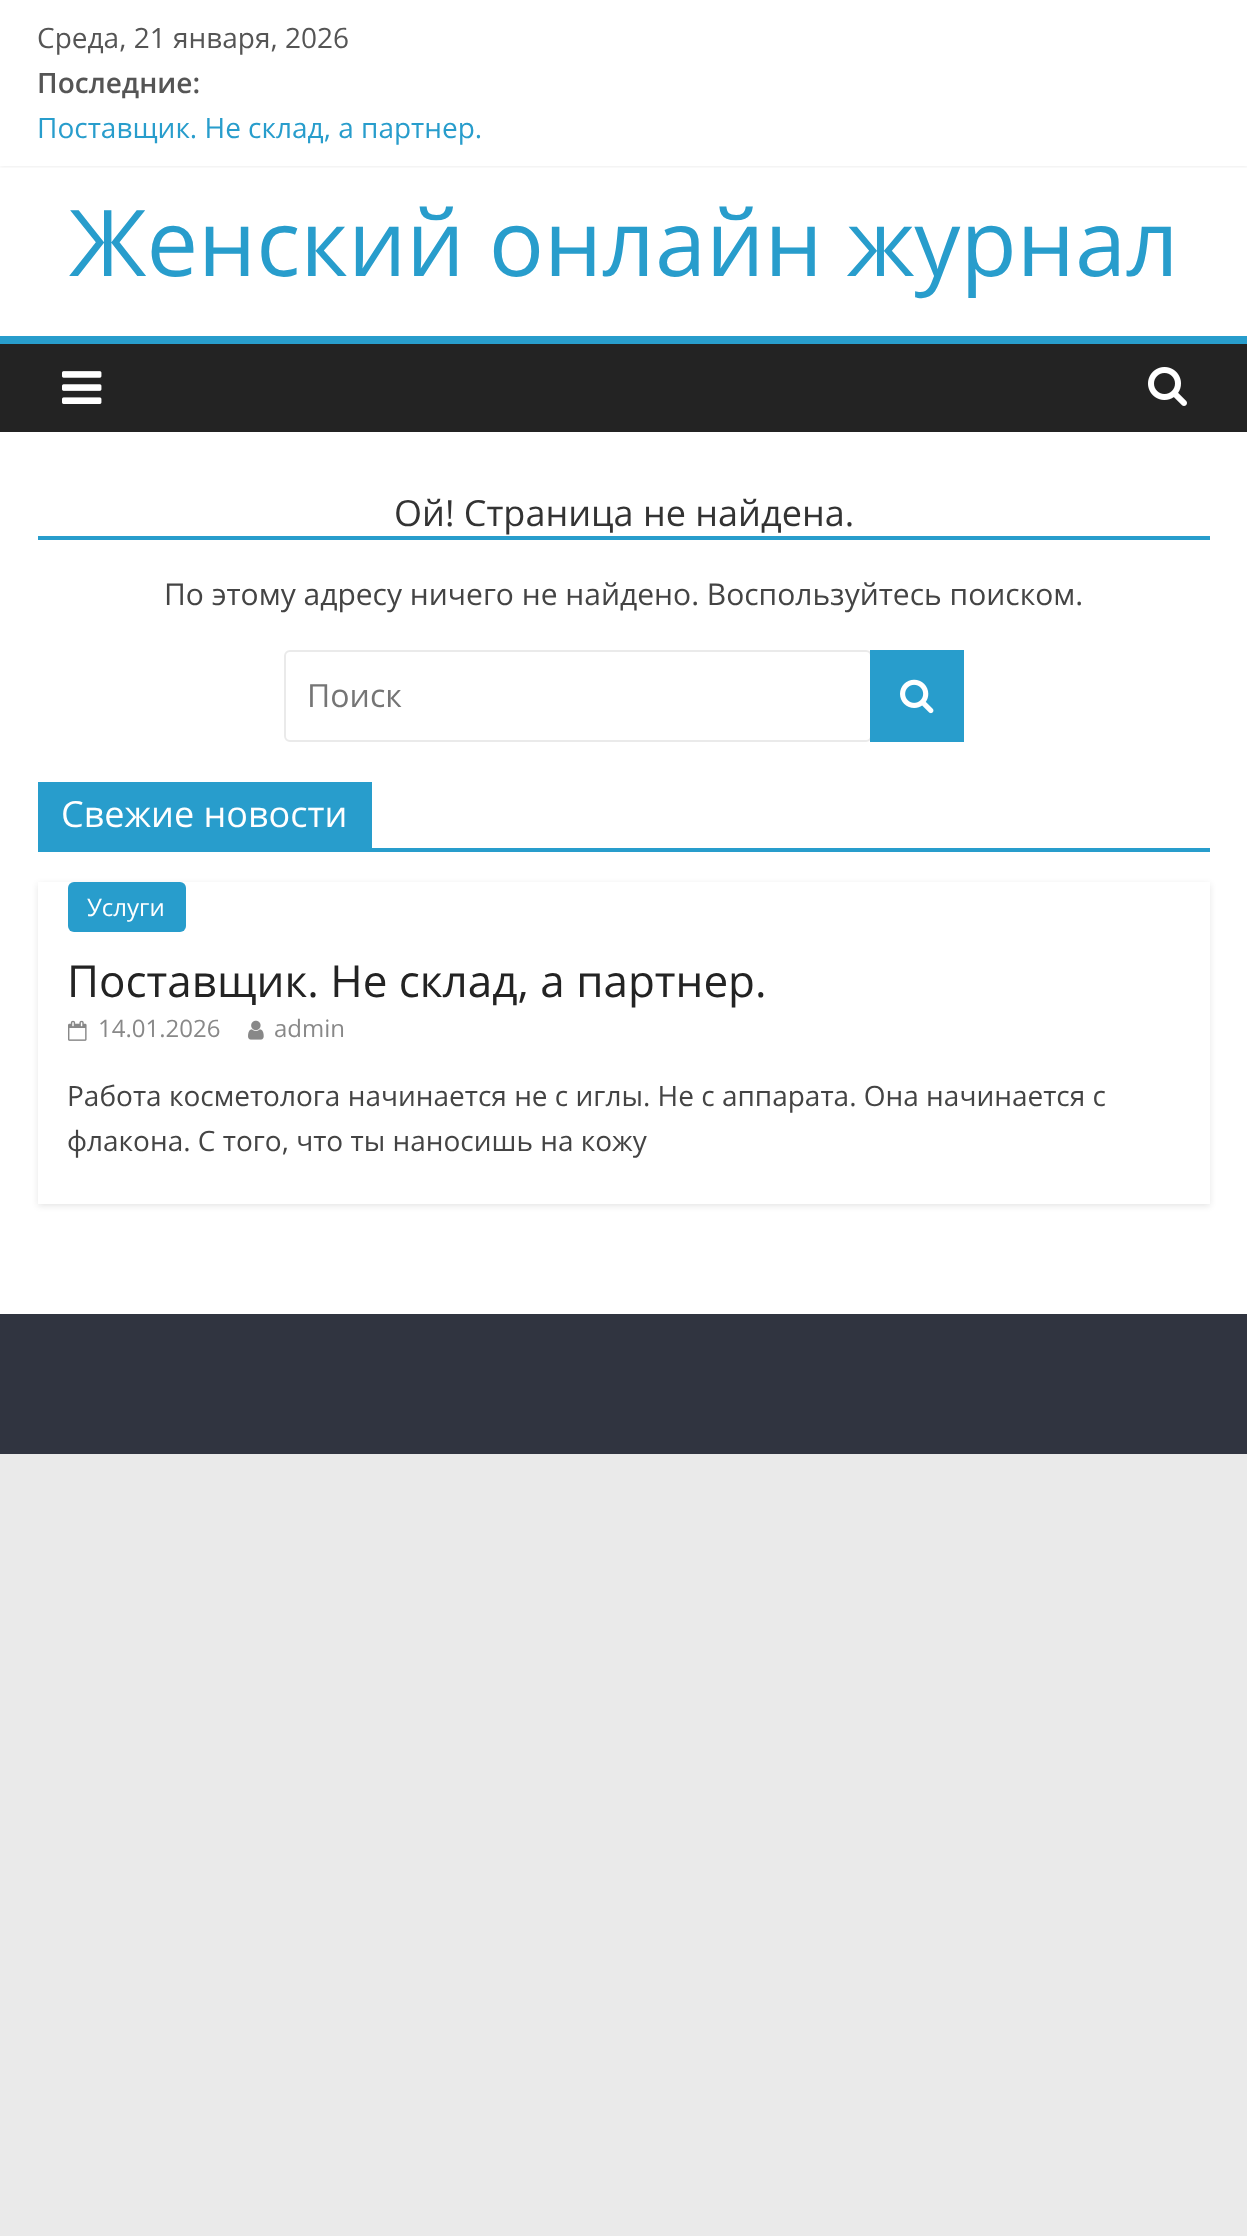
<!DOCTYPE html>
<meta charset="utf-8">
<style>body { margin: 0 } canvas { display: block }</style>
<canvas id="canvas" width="1247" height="2236"></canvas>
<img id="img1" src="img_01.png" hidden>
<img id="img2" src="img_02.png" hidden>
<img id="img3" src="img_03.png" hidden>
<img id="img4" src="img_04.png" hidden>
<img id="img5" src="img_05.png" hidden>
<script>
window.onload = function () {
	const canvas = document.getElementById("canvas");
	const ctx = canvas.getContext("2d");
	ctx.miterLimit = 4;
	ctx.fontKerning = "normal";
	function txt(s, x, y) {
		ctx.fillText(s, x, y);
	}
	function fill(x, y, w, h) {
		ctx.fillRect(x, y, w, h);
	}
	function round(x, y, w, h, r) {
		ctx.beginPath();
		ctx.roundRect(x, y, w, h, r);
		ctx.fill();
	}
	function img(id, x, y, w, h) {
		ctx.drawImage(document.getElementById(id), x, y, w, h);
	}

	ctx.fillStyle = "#EAEAEA";
	fill(0, 0, 1247, 2236);
	ctx.fillStyle = "#FFFFFF";
	fill(0, 0, 1247, 336);
	ctx.save();
	ctx.beginPath();
	ctx.rect(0, 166, 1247, 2);
	ctx.clip();
	ctx.fillStyle = "rgba(0, 0, 0, 0.1)";
	ctx.filter = "blur(2px)";
	ctx.beginPath();
	ctx.rect(0, 0, 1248, 166);
	ctx.fill();
	ctx.filter = "none";
	ctx.restore();
	ctx.fillStyle = "#232323";
	fill(0, 344, 1247, 88);
	ctx.fillStyle = "#289DCC";
	fill(0, 336, 1247, 8);
	img("img1", 62, 371, 40, 33);
	img("img2", 1148, 367, 39, 39);
	ctx.fillStyle = "#FFFFFF";
	fill(0, 432, 1247, 882);
	ctx.fillStyle = "#289DCC";
	fill(38, 536, 1172, 4);
	ctx.beginPath();
	ctx.roundRect(285, 651, 586, 90, 5);
	ctx.strokeStyle = "#EAEAEA";
	ctx.lineWidth = 2;
	ctx.stroke();
	fill(870, 650, 94, 92);
	img("img3", 900, 679, 34, 35);
	fill(38, 848, 1172, 4);
	fill(38, 782, 334, 66);
	ctx.save();
	ctx.beginPath();
	ctx.moveTo(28, 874);
	ctx.lineTo(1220, 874);
	ctx.lineTo(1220, 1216);
	ctx.lineTo(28, 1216);
	ctx.closePath();
	ctx.moveTo(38, 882);
	ctx.lineTo(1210, 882);
	ctx.lineTo(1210, 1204);
	ctx.lineTo(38, 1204);
	ctx.closePath();
	ctx.clip("evenodd");
	ctx.fillStyle = "rgba(0, 0, 0, 0.1)";
	ctx.filter = "blur(3px)";
	ctx.beginPath();
	ctx.rect(38, 884, 1172, 322);
	ctx.fill();
	ctx.filter = "none";
	ctx.restore();
	round(68, 882, 118, 50, 6);
	img("img4", 68, 1020, 19, 21);
	img("img5", 248, 1020, 16, 20);
	ctx.fillStyle = "#303440";
	fill(0, 1314, 1247, 140);
	ctx.font = "28px Open Sans";
	ctx.fillStyle = "#555555";
	txt("Среда, 21 января, 2026", 37, 48);
	ctx.font = "600 28px Open Sans";
	txt("Последние:", 37, 93);
	ctx.font = "28px Open Sans";
	ctx.fillStyle = "#289DCC";
	txt("Поставщик. Не склад, а партнер.", 37, 138);
	ctx.font = "92px Open Sans";
	txt("Женский онлайн журнал", 69, 276);
	ctx.font = "36px Open Sans";
	ctx.fillStyle = "#333333";
	txt("Ой! Страница не найдена.", 394, 526);
	ctx.font = "30px Open Sans";
	ctx.fillStyle = "#444444";
	txt("По этому адресу ничего не найдено. Воспользуйтесь поиском.", 164, 605);
	ctx.font = "32px Open Sans";
	ctx.fillStyle = "#757575";
	txt("Поиск", 307, 707);
	ctx.font = "36px Open Sans";
	ctx.fillStyle = "#FFFFFF";
	txt("Свежие новости", 61, 827);
	ctx.font = "24px Open Sans";
	txt("Услуги", 87, 916);
	ctx.font = "44px Open Sans";
	ctx.fillStyle = "#232323";
	txt("Поставщик. Не склад, а партнер.", 67, 997);
	ctx.font = "24px Open Sans";
	ctx.fillStyle = "#888888";
	txt("14.01.2026", 98, 1037);
	txt("admin", 274, 1037);
	ctx.font = "28px Open Sans";
	ctx.fillStyle = "#444444";
	txt("Работа косметолога начинается не с иглы. Не с аппарата. Она начинается с", 67, 1106);
	txt("флакона. С того, что ты наносишь на кожу", 67, 1151);
};
</script>
